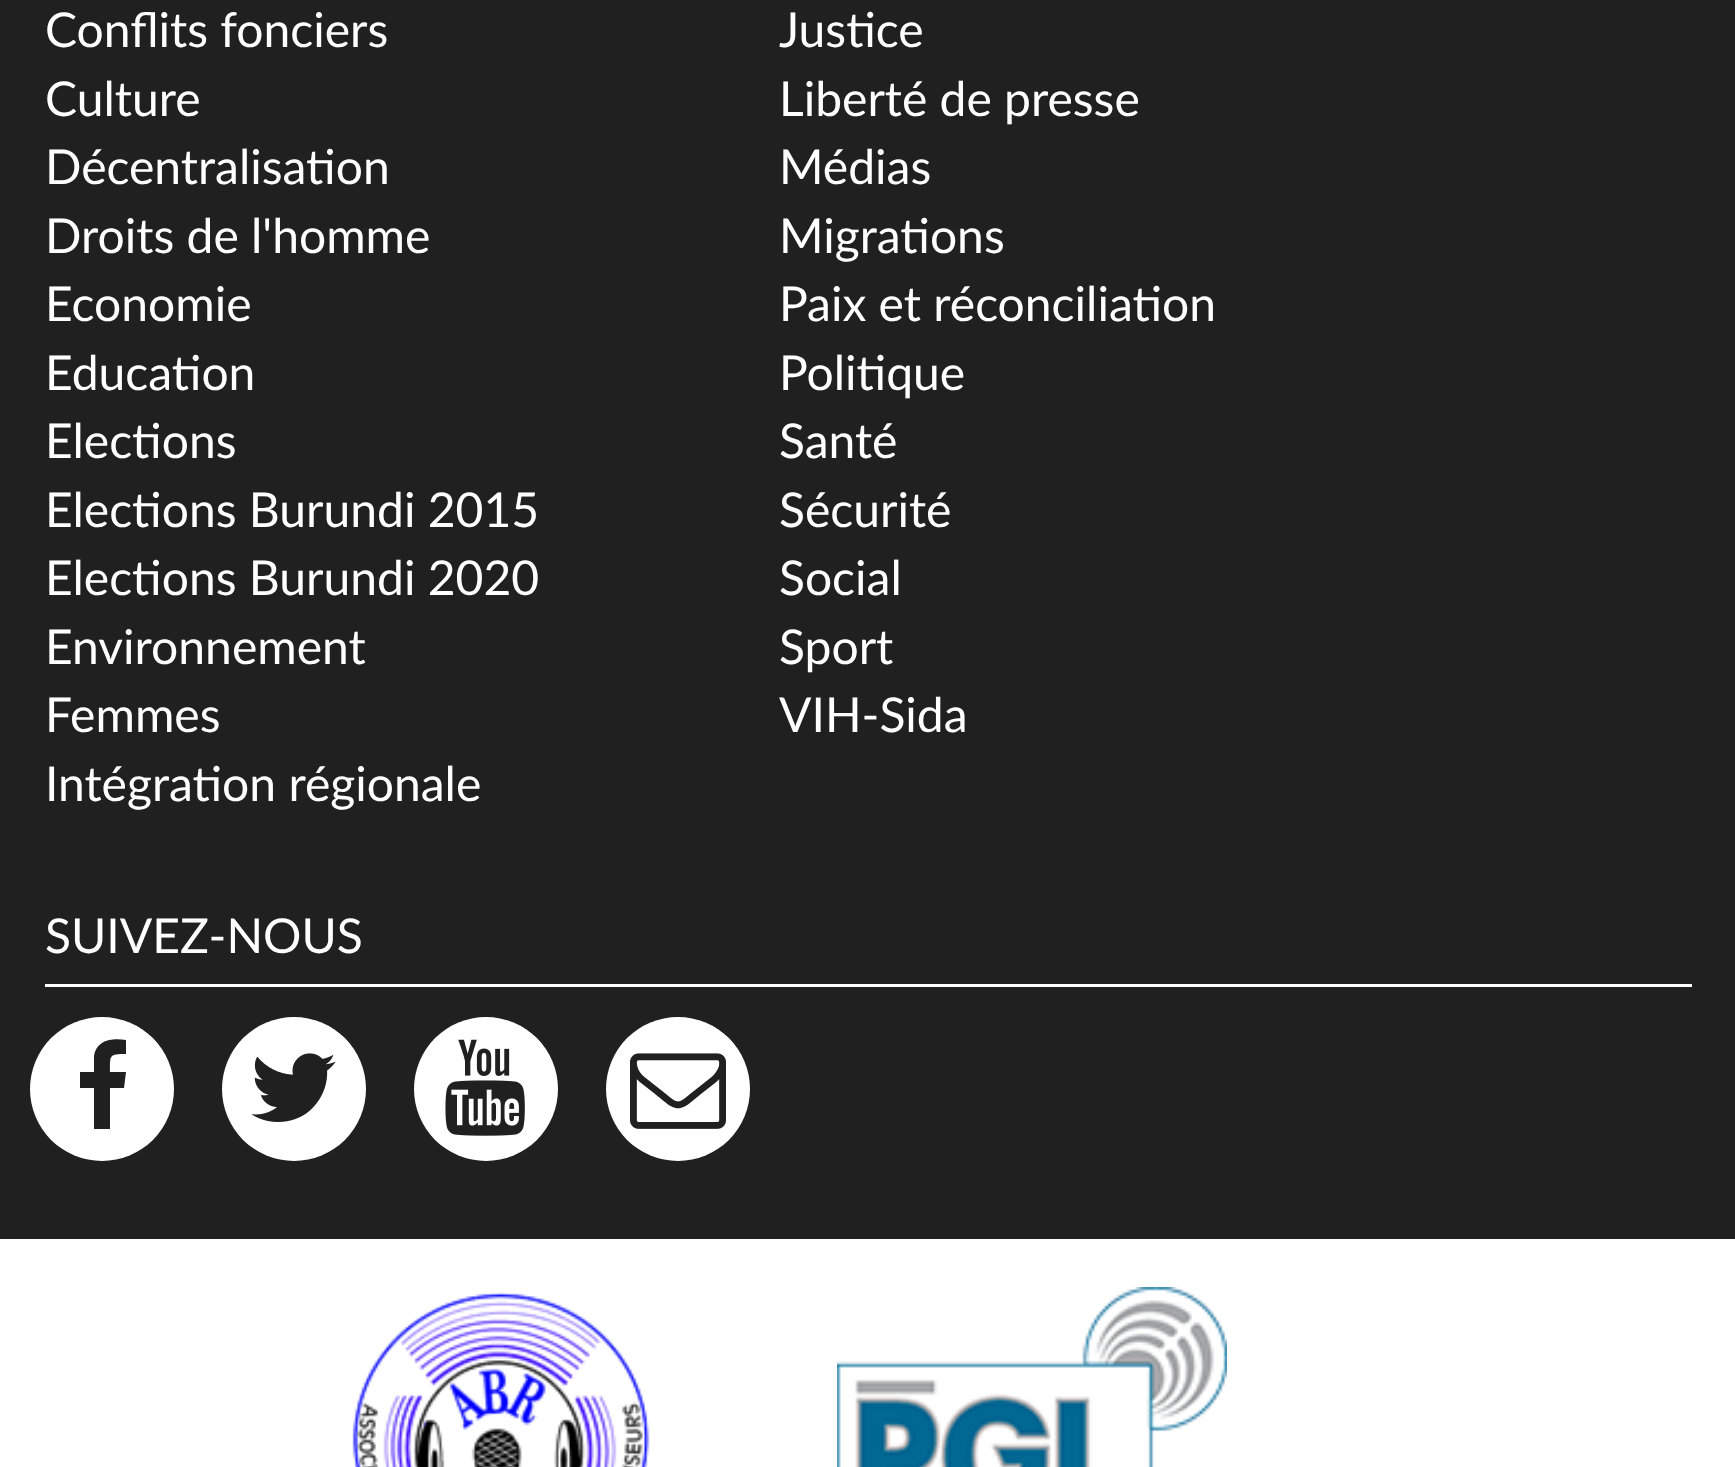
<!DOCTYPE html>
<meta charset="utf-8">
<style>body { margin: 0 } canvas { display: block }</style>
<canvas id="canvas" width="1735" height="1467"></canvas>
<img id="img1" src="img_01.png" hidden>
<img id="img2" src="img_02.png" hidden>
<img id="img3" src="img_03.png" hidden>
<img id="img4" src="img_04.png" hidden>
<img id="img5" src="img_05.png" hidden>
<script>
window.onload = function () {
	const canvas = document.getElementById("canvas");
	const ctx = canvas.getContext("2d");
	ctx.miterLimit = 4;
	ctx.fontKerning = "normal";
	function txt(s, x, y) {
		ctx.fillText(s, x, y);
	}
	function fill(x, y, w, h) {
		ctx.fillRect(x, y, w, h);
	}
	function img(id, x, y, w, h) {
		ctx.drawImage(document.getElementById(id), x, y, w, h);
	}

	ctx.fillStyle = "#FFFFFF";
	fill(0, 0, 1735, 1467);
	ctx.fillStyle = "#202020";
	fill(0, 0, 1735, 1239);
	ctx.fillStyle = "#FFFFFF";
	fill(45, 984, 1647, 3);
	ctx.beginPath();
	ctx.arc(102, 1089, 72, 0, Math.PI * 2);
	ctx.fill();
	ctx.fillStyle = "#202020";
	ctx.beginPath();
	ctx.moveTo(126, 1040);
	ctx.lineTo(126, 1054);
	ctx.bezierCurveTo(109, 1054, 110, 1055, 110, 1072);
	ctx.lineTo(126, 1072);
	ctx.lineTo(124, 1088);
	ctx.lineTo(110, 1088);
	ctx.lineTo(110, 1129);
	ctx.lineTo(94, 1129);
	ctx.lineTo(94, 1088);
	ctx.lineTo(80, 1088);
	ctx.lineTo(80, 1072);
	ctx.lineTo(94, 1072);
	ctx.lineTo(94, 1056);
	ctx.bezierCurveTo(97, 1039, 113, 1038, 126, 1040);
	ctx.closePath();
	ctx.fill();
	ctx.fillStyle = "#FFFFFF";
	ctx.beginPath();
	ctx.arc(294, 1089, 72, 0, Math.PI * 2);
	ctx.fill();
	img("img1", 251, 1053, 85, 69);
	ctx.beginPath();
	ctx.arc(486, 1089, 72, 0, Math.PI * 2);
	ctx.fill();
	img("img2", 445, 1039, 80, 97);
	ctx.beginPath();
	ctx.arc(678, 1089, 72, 0, Math.PI * 2);
	ctx.fill();
	img("img3", 630, 1053, 96, 76);
	img("img4", 352, 1292, 298, 175);
	img("img5", 837, 1287, 390, 180);
	ctx.font = "48px Lato";
	txt("Conflits fonciers", 45, 47);
	txt("Culture", 45, 116);
	txt("Décentralisation", 45, 184);
	txt("Droits de l'homme", 45, 253);
	txt("Economie", 45, 321);
	txt("Education", 45, 390);
	txt("Elections", 45, 458);
	txt("Elections Burundi 2015", 45, 527);
	txt("Elections Burundi 2020", 45, 595);
	txt("Environnement", 45, 664);
	txt("Femmes", 45, 732);
	txt("Intégration régionale", 45, 801);
	txt("Justice", 779, 47);
	txt("Liberté de presse", 779, 116);
	txt("Médias", 779, 184);
	txt("Migrations", 779, 253);
	txt("Paix et réconciliation", 779, 321);
	txt("Politique", 779, 390);
	txt("Santé", 779, 458);
	txt("Sécurité", 779, 527);
	txt("Social", 779, 595);
	txt("Sport", 779, 664);
	txt("VIH-Sida", 779, 732);
	txt("SUIVEZ-NOUS", 45, 953);
};
</script>
